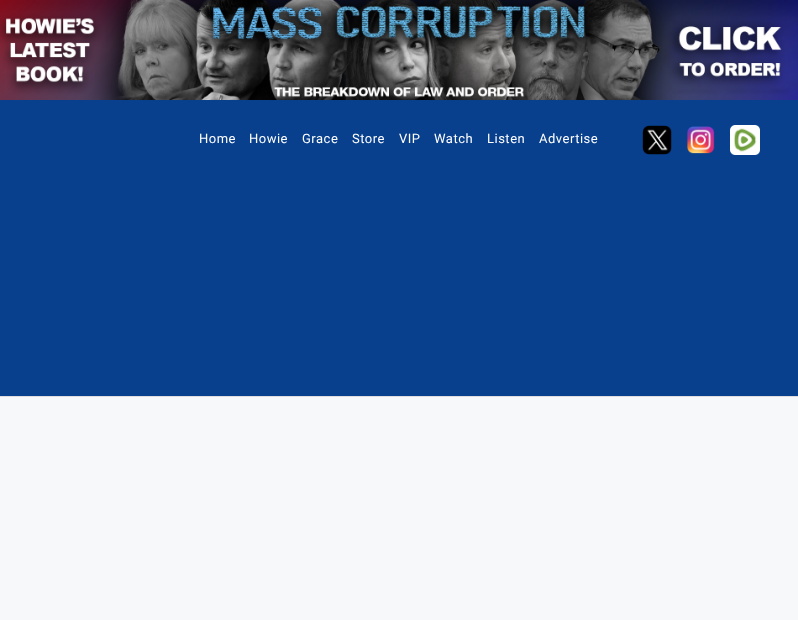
<!DOCTYPE html>
<meta charset="utf-8">
<style>body { margin: 0 } canvas { display: block }</style>
<canvas id="canvas" width="798" height="620"></canvas>
<img id="img1" src="img_01.png" hidden>
<img id="img2" src="img_02.png" hidden>
<img id="img3" src="img_03.png" hidden>
<img id="img4" src="img_04.png" hidden>
<script>
window.onload = function () {
	const canvas = document.getElementById("canvas");
	const ctx = canvas.getContext("2d");
	ctx.miterLimit = 4;
	ctx.fontKerning = "normal";
	function txt(s, x, y) {
		ctx.fillText(s, x, y);
	}
	function fill(x, y, w, h) {
		ctx.fillRect(x, y, w, h);
	}
	function img(id, x, y, w, h) {
		ctx.drawImage(document.getElementById(id), x, y, w, h);
	}

	ctx.fillStyle = "#F6F8FA";
	fill(0, 0, 798, 620);
	img("img1", 0, 0, 798, 100);
	ctx.fillStyle = "#08408E";
	fill(0, 100, 798, 296);
	ctx.fillStyle = "#DEDEDE";
	fill(0, 396, 798, 1);
	img("img2", 642, 125, 30, 30);
	img("img3", 687, 126, 28, 28);
	img("img4", 730, 125, 30, 30);
	ctx.letterSpacing = "0.5px";
	ctx.font = "13px Roboto";
	ctx.fillStyle = "#FFFFFF";
	txt("Home", 199, 143);
	txt("Howie", 249, 143);
	txt("Grace", 302, 143);
	txt("Store", 352, 143);
	txt("VIP", 399, 143);
	txt("Watch", 434, 143);
	txt("Listen", 487, 143);
	txt("Advertise", 539, 143);
};
</script>
